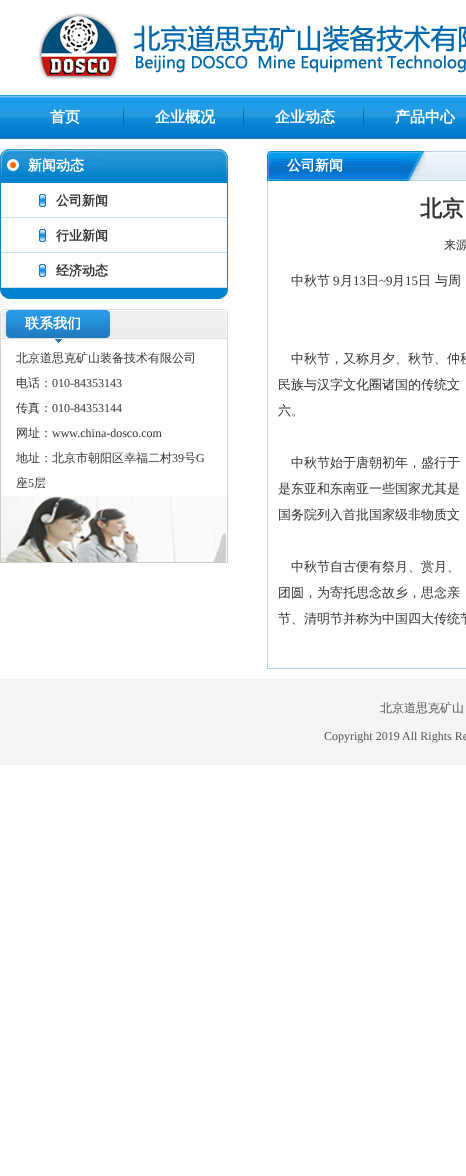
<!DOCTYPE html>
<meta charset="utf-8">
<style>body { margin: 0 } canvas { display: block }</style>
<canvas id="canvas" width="466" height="1176"></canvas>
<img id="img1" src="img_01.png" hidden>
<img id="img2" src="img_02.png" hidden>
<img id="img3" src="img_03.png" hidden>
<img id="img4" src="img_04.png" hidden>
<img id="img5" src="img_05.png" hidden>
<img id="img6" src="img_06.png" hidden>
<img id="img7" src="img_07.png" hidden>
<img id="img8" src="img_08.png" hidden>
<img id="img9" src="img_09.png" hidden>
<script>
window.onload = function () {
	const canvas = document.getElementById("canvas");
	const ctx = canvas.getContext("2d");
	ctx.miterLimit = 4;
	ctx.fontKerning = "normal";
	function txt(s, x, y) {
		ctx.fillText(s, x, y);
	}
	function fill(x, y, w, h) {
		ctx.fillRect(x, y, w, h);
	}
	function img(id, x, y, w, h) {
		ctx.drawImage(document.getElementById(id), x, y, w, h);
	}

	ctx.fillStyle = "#FFFFFF";
	fill(0, 0, 466, 1176);
	img("img1", 38, 13, 428, 68);
	img("img2", 0, 95, 466, 44);
	img("img3", 122, 106, 3, 21);
	img("img3", 242, 106, 3, 21);
	img("img3", 362, 106, 3, 21);
	img("img4", 0, 149, 228, 33);
	ctx.strokeStyle = "#0082CA";
	ctx.strokeRect(0.5, 182.5, 227, 106);
	img("img5", 1, 191, 226, 27);
	img("img5", 1, 226, 226, 27);
	img("img5", 1, 261, 226, 27);
	img("img6", 0, 289, 228, 10);
	img("img7", 0, 309, 228, 37);
	ctx.fillStyle = "#CCCCCC";
	fill(227, 346, 1, 217);
	fill(0, 562, 228, 1);
	fill(0, 346, 1, 217);
	img("img8", 1, 496, 225, 66);
	img("img9", 267, 151, 199, 30);
	ctx.fillStyle = "#B6D3EB";
	fill(267, 668, 199, 1);
	fill(267, 181, 1, 488);
	ctx.fillStyle = "#F5F5F5";
	fill(0, 679, 466, 86);
	ctx.font = "bold 15px WenQuanYi Zen Hei";
	ctx.fillStyle = "#FFFFFF";
	txt("首页", 50, 122);
	txt("企业概况", 155, 122);
	txt("企业动态", 275, 122);
	txt("产品中心", 395, 122);
	ctx.font = "bold 14px WenQuanYi Zen Hei";
	txt("新闻动态", 28, 170);
	ctx.font = "bold 13px WenQuanYi Zen Hei";
	ctx.fillStyle = "#333333";
	txt("公司新闻", 56, 205);
	txt("行业新闻", 56, 240);
	txt("经济动态", 56, 275);
	ctx.font = "bold 14px WenQuanYi Zen Hei";
	ctx.fillStyle = "#FFFFFF";
	txt("联系我们", 25, 328);
	ctx.font = "500 12px WenQuanYi Zen Hei";
	ctx.fillStyle = "#333333";
	txt("北京道思克矿山装备技术有限公司", 16, 362);
	txt("电话：", 16, 387);
	ctx.font = "12px Liberation Serif";
	txt("010-84353143", 52, 387);
	ctx.font = "500 12px WenQuanYi Zen Hei";
	txt("传真：", 16, 412);
	ctx.font = "12px Liberation Serif";
	txt("010-84353144", 52, 412);
	ctx.font = "500 12px WenQuanYi Zen Hei";
	txt("网址：", 16, 437);
	ctx.font = "12px Liberation Serif";
	txt("www.china-dosco.com", 52, 437);
	ctx.font = "500 12px WenQuanYi Zen Hei";
	txt("地址：北京市朝阳区幸福二村", 16, 462);
	ctx.font = "12px Liberation Serif";
	txt("39", 172, 462);
	ctx.font = "500 12px WenQuanYi Zen Hei";
	txt("号", 184, 462);
	ctx.font = "12px Liberation Serif";
	txt("G", 196, 462);
	ctx.font = "500 12px WenQuanYi Zen Hei";
	txt("座", 16, 487);
	ctx.font = "12px Liberation Serif";
	txt("5", 28, 487);
	ctx.font = "500 12px WenQuanYi Zen Hei";
	txt("层", 34, 487);
	ctx.font = "bold 14px WenQuanYi Zen Hei";
	ctx.fillStyle = "#FFFFFF";
	txt("公司新闻", 287, 170);
	ctx.font = "bold 22px WenQuanYi Zen Hei";
	ctx.fillStyle = "#333333";
	txt("北京", 420, 216);
	ctx.font = "500 12px WenQuanYi Zen Hei";
	txt("来源", 444, 249);
	ctx.font = "500 13px WenQuanYi Zen Hei";
	txt("中秋节", 291, 285);
	ctx.font = "13px Liberation Serif";
	txt("9", 333, 285);
	ctx.font = "500 13px WenQuanYi Zen Hei";
	txt("月", 340, 285);
	ctx.font = "13px Liberation Serif";
	txt("13", 353, 285);
	ctx.font = "500 13px WenQuanYi Zen Hei";
	txt("日", 366, 285);
	ctx.font = "13px Liberation Serif";
	txt("~9", 379, 285);
	ctx.font = "500 13px WenQuanYi Zen Hei";
	txt("月", 392, 285);
	ctx.font = "13px Liberation Serif";
	txt("15", 405, 285);
	ctx.font = "500 13px WenQuanYi Zen Hei";
	txt("日", 418, 285);
	txt("与周", 435, 285);
	txt("中秋节，又称月夕、秋节、仲秋", 291, 363);
	txt("民族与汉字文化圈诸国的传统文", 278, 389);
	txt("六。", 278, 415);
	txt("中秋节始于唐朝初年，盛行于", 291, 467);
	txt("是东亚和东南亚一些国家尤其是", 278, 493);
	txt("国务院列入首批国家级非物质文", 278, 519);
	txt("中秋节自古便有祭月、赏月、", 291, 571);
	txt("团圆，为寄托思念故乡，思念亲", 278, 597);
	txt("节、清明节并称为中国四大传统节", 278, 623);
	ctx.wordSpacing = "-1px";
	ctx.font = "500 12px WenQuanYi Zen Hei";
	ctx.fillStyle = "#555555";
	txt("北京道思克矿山", 380, 712);
	ctx.wordSpacing = "0px";
	ctx.font = "12px Liberation Serif";
	txt("Copyright 2019 All Rights Re", 324, 740);
};
</script>
